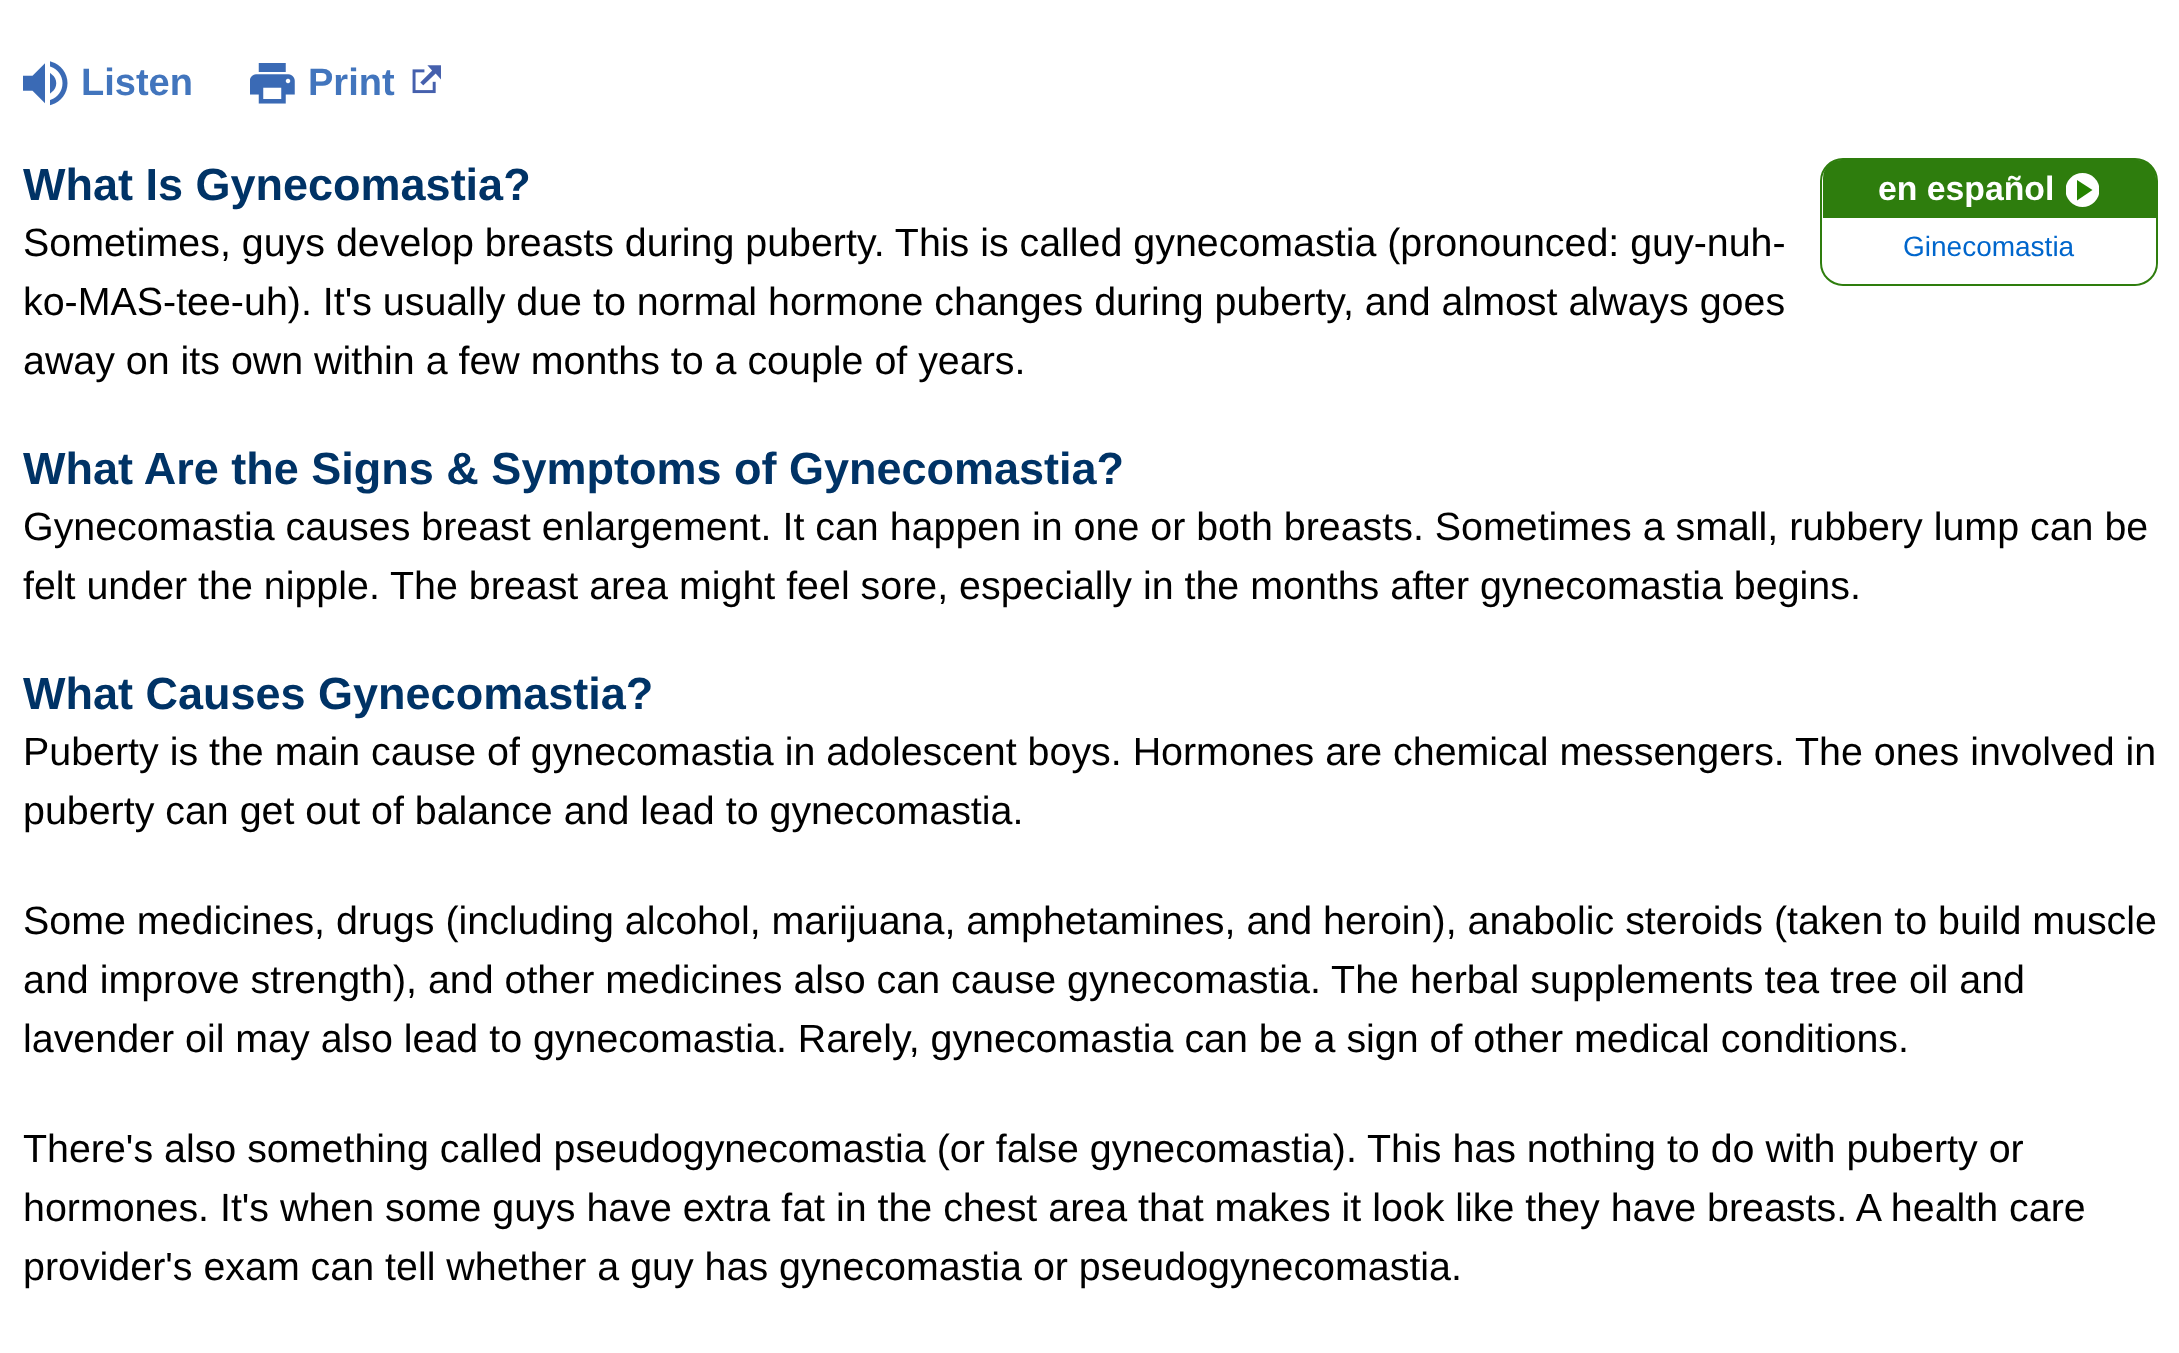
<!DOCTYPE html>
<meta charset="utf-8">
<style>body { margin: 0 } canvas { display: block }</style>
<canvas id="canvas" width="2179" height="1353"></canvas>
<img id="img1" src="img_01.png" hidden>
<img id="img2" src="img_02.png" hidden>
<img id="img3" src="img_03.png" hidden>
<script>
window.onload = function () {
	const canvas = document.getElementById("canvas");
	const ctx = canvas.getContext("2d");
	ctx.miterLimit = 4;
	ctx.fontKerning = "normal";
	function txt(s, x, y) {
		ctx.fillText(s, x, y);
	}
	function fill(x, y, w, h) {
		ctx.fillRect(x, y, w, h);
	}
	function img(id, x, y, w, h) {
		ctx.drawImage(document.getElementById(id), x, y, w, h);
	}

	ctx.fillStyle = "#FFFFFF";
	fill(0, 0, 2179, 1353);
	img("img1", 23, 61, 45, 45);
	img("img2", 250, 63, 45, 41);
	img("img3", 412, 65, 29, 29);
	ctx.beginPath();
	ctx.roundRect(1821, 159, 336, 126, 22);
	ctx.strokeStyle = "#2E7D0D";
	ctx.lineWidth = 2;
	ctx.stroke();
	ctx.fillStyle = "#2E7D0D";
	ctx.beginPath();
	ctx.roundRect(1823, 160, 333, 58, [18, 18, 0, 0]);
	ctx.fill();
	ctx.save();
	ctx.beginPath();
	ctx.rect(2066, 173, 33, 34);
	ctx.clip();
	ctx.fillStyle = "#FFFFFF";
	ctx.beginPath();
	ctx.arc(2082.5, 190, 17, 0, Math.PI * 2);
	ctx.fill();
	ctx.restore();
	ctx.fillStyle = "#258300";
	ctx.beginPath();
	ctx.moveTo(2077, 180);
	ctx.lineTo(2077, 200.5);
	ctx.lineTo(2092.5, 190);
	ctx.closePath();
	ctx.fill("evenodd");
	ctx.fillStyle = "#FFFFFF";
	ctx.beginPath();
	ctx.roundRect(1823, 218, 333, 66, [0, 0, 23, 23]);
	ctx.fill();
	ctx.font = "bold 38px Liberation Sans";
	ctx.fillStyle = "#4275BD";
	txt("Listen", 81, 95);
	txt("Print", 308, 95);
	ctx.font = "bold 45px Liberation Sans";
	ctx.fillStyle = "#003366";
	txt("What Is Gynecomastia?", 23, 200);
	ctx.font = "39.38px Liberation Sans";
	ctx.fillStyle = "#000000";
	txt("Sometimes, guys develop breasts during puberty. This is called gynecomastia (pronounced: guy-nuh-", 23, 256);
	txt("ko-MAS-tee-uh). It's usually due to normal hormone changes during puberty, and almost always goes", 23, 315);
	txt("away on its own within a few months to a couple of years.", 23, 374);
	ctx.font = "bold 45px Liberation Sans";
	ctx.fillStyle = "#003366";
	txt("What Are the Signs & Symptoms of Gynecomastia?", 23, 484);
	ctx.font = "39.38px Liberation Sans";
	ctx.fillStyle = "#000000";
	txt("Gynecomastia causes breast enlargement. It can happen in one or both breasts. Sometimes a small, rubbery lump can be", 23, 540);
	txt("felt under the nipple. The breast area might feel sore, especially in the months after gynecomastia begins.", 23, 599);
	ctx.font = "bold 45px Liberation Sans";
	ctx.fillStyle = "#003366";
	txt("What Causes Gynecomastia?", 23, 709);
	ctx.font = "39.38px Liberation Sans";
	ctx.fillStyle = "#000000";
	txt("Puberty is the main cause of gynecomastia in adolescent boys. Hormones are chemical messengers. The ones involved in", 23, 765);
	txt("puberty can get out of balance and lead to gynecomastia.", 23, 824);
	txt("Some medicines, drugs (including alcohol, marijuana, amphetamines, and heroin), anabolic steroids (taken to build muscle", 23, 934);
	txt("and improve strength), and other medicines also can cause gynecomastia. The herbal supplements tea tree oil and", 23, 993);
	txt("lavender oil may also lead to gynecomastia. Rarely, gynecomastia can be a sign of other medical conditions.", 23, 1052);
	txt("There's also something called pseudogynecomastia (or false gynecomastia). This has nothing to do with puberty or", 23, 1162);
	txt("hormones. It's when some guys have extra fat in the chest area that makes it look like they have breasts. A health care", 23, 1221);
	txt("provider's exam can tell whether a guy has gynecomastia or pseudogynecomastia.", 23, 1280);
	ctx.font = "bold 33.75px Liberation Sans";
	ctx.fillStyle = "#FFFFFF";
	txt("en español", 1878, 200);
	ctx.font = "28px Liberation Sans";
	ctx.fillStyle = "#0066CC";
	txt("Ginecomastia", 1903, 256);
};
</script>
